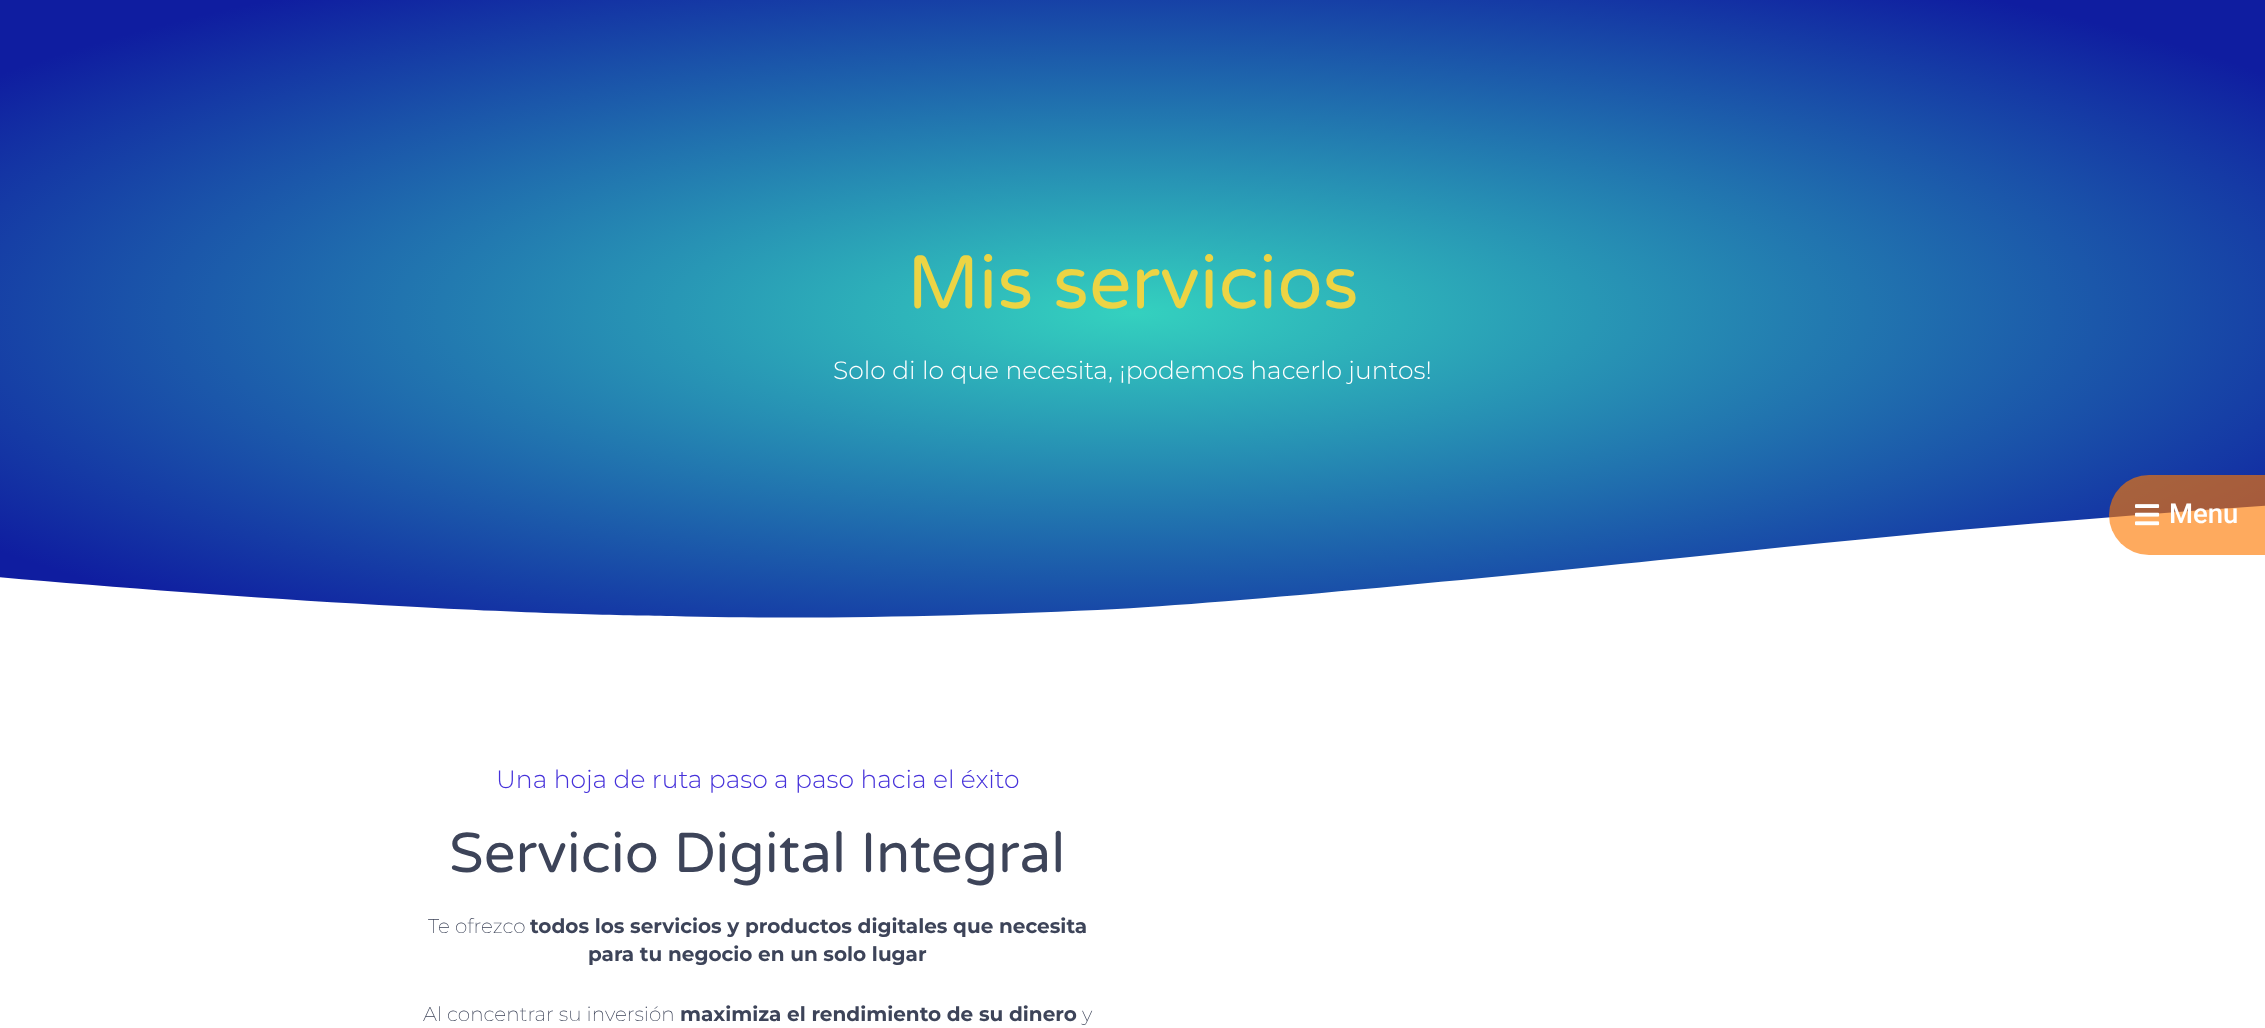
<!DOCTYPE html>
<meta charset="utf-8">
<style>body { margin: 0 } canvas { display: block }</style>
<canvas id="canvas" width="2265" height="1028"></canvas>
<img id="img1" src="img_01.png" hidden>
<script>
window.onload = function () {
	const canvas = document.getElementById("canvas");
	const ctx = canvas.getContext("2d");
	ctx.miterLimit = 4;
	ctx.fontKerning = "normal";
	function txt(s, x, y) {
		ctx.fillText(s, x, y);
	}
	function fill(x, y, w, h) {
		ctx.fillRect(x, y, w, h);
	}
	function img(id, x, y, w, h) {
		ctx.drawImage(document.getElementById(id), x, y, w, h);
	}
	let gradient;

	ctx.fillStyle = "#FFFFFF";
	fill(0, 0, 2265, 1028);
	gradient = ctx.createRadialGradient(1133, 1134.45, 0, 1133, 1134.45, 1602);
	gradient.addColorStop(0, "#34D1BF");
	gradient.addColorStop(0.89, "#0F1DA0");
	ctx.fillStyle = gradient;
	ctx.beginPath();
	ctx.rect(0, 0, 2265, 618);
	ctx.save();
	ctx.clip();
	ctx.scale(1, 442 / 1602);
	ctx.fillRect(0, 0, 2265, 3726);
	ctx.restore();
	ctx.fillStyle = "#FFFFFF";
	ctx.beginPath();
	ctx.moveTo(672, 616);
	ctx.bezierCurveTo(806, 620, 976, 616, 1117, 609);
	ctx.bezierCurveTo(1256, 601, 1535, 573, 1709, 555);
	ctx.bezierCurveTo(2156, 507, 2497, 488, 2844, 480);
	ctx.bezierCurveTo(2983, 477, 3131, 475, 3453, 484);
	ctx.bezierCurveTo(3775, 493, 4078, 523, 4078, 523);
	ctx.lineTo(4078, 626);
	ctx.lineTo(-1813, 626);
	ctx.lineTo(-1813, 581);
	ctx.bezierCurveTo(-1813, 581, -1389, 532, -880, 535);
	ctx.bezierCurveTo(-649, 536, -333, 545, -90, 569);
	ctx.bezierCurveTo(34, 581, 217, 596, 379, 605);
	ctx.bezierCurveTo(539, 614, 612, 615, 672, 616);
	ctx.closePath();
	ctx.fill();
	ctx.fillStyle = "rgba(253, 121, 0, 0.63)";
	ctx.beginPath();
	ctx.roundRect(2109, 475, 156, 80, [40, 0, 0, 40]);
	ctx.fill();
	img("img1", 2135, 504, 25, 22);
	ctx.font = "75px Varela Round";
	ctx.fillStyle = "#ECD444";
	txt("Mis servicios", 907, 308);
	ctx.font = "300 25px Montserrat";
	ctx.fillStyle = "#FFFFFF";
	txt("Solo di lo que necesita, ¡podemos hacerlo juntos!", 833, 379);
	ctx.fillStyle = "#4632DA";
	txt("Una hoja de ruta paso a paso hacia el éxito", 496, 788);
	ctx.font = "56.25px Varela Round";
	ctx.fillStyle = "#3D4459";
	txt("Servicio Digital Integral", 449, 872);
	ctx.font = "200 20px Montserrat";
	txt("Te ofrezco", 428, 933);
	ctx.font = "bold 20px Montserrat";
	txt("todos los servicios y productos digitales que necesita", 530, 933);
	txt("para tu negocio en un solo lugar", 588, 961);
	ctx.font = "200 20px Montserrat";
	txt("Al concentrar su inversión", 423, 1021);
	ctx.font = "bold 20px Montserrat";
	txt("maximiza el rendimiento de su dinero", 680, 1021);
	ctx.font = "200 20px Montserrat";
	txt("y", 1082, 1021);
	ctx.font = "500 27.5px Roboto";
	ctx.fillStyle = "#FFFFFF";
	txt("Menu", 2169, 523);
};
</script>
